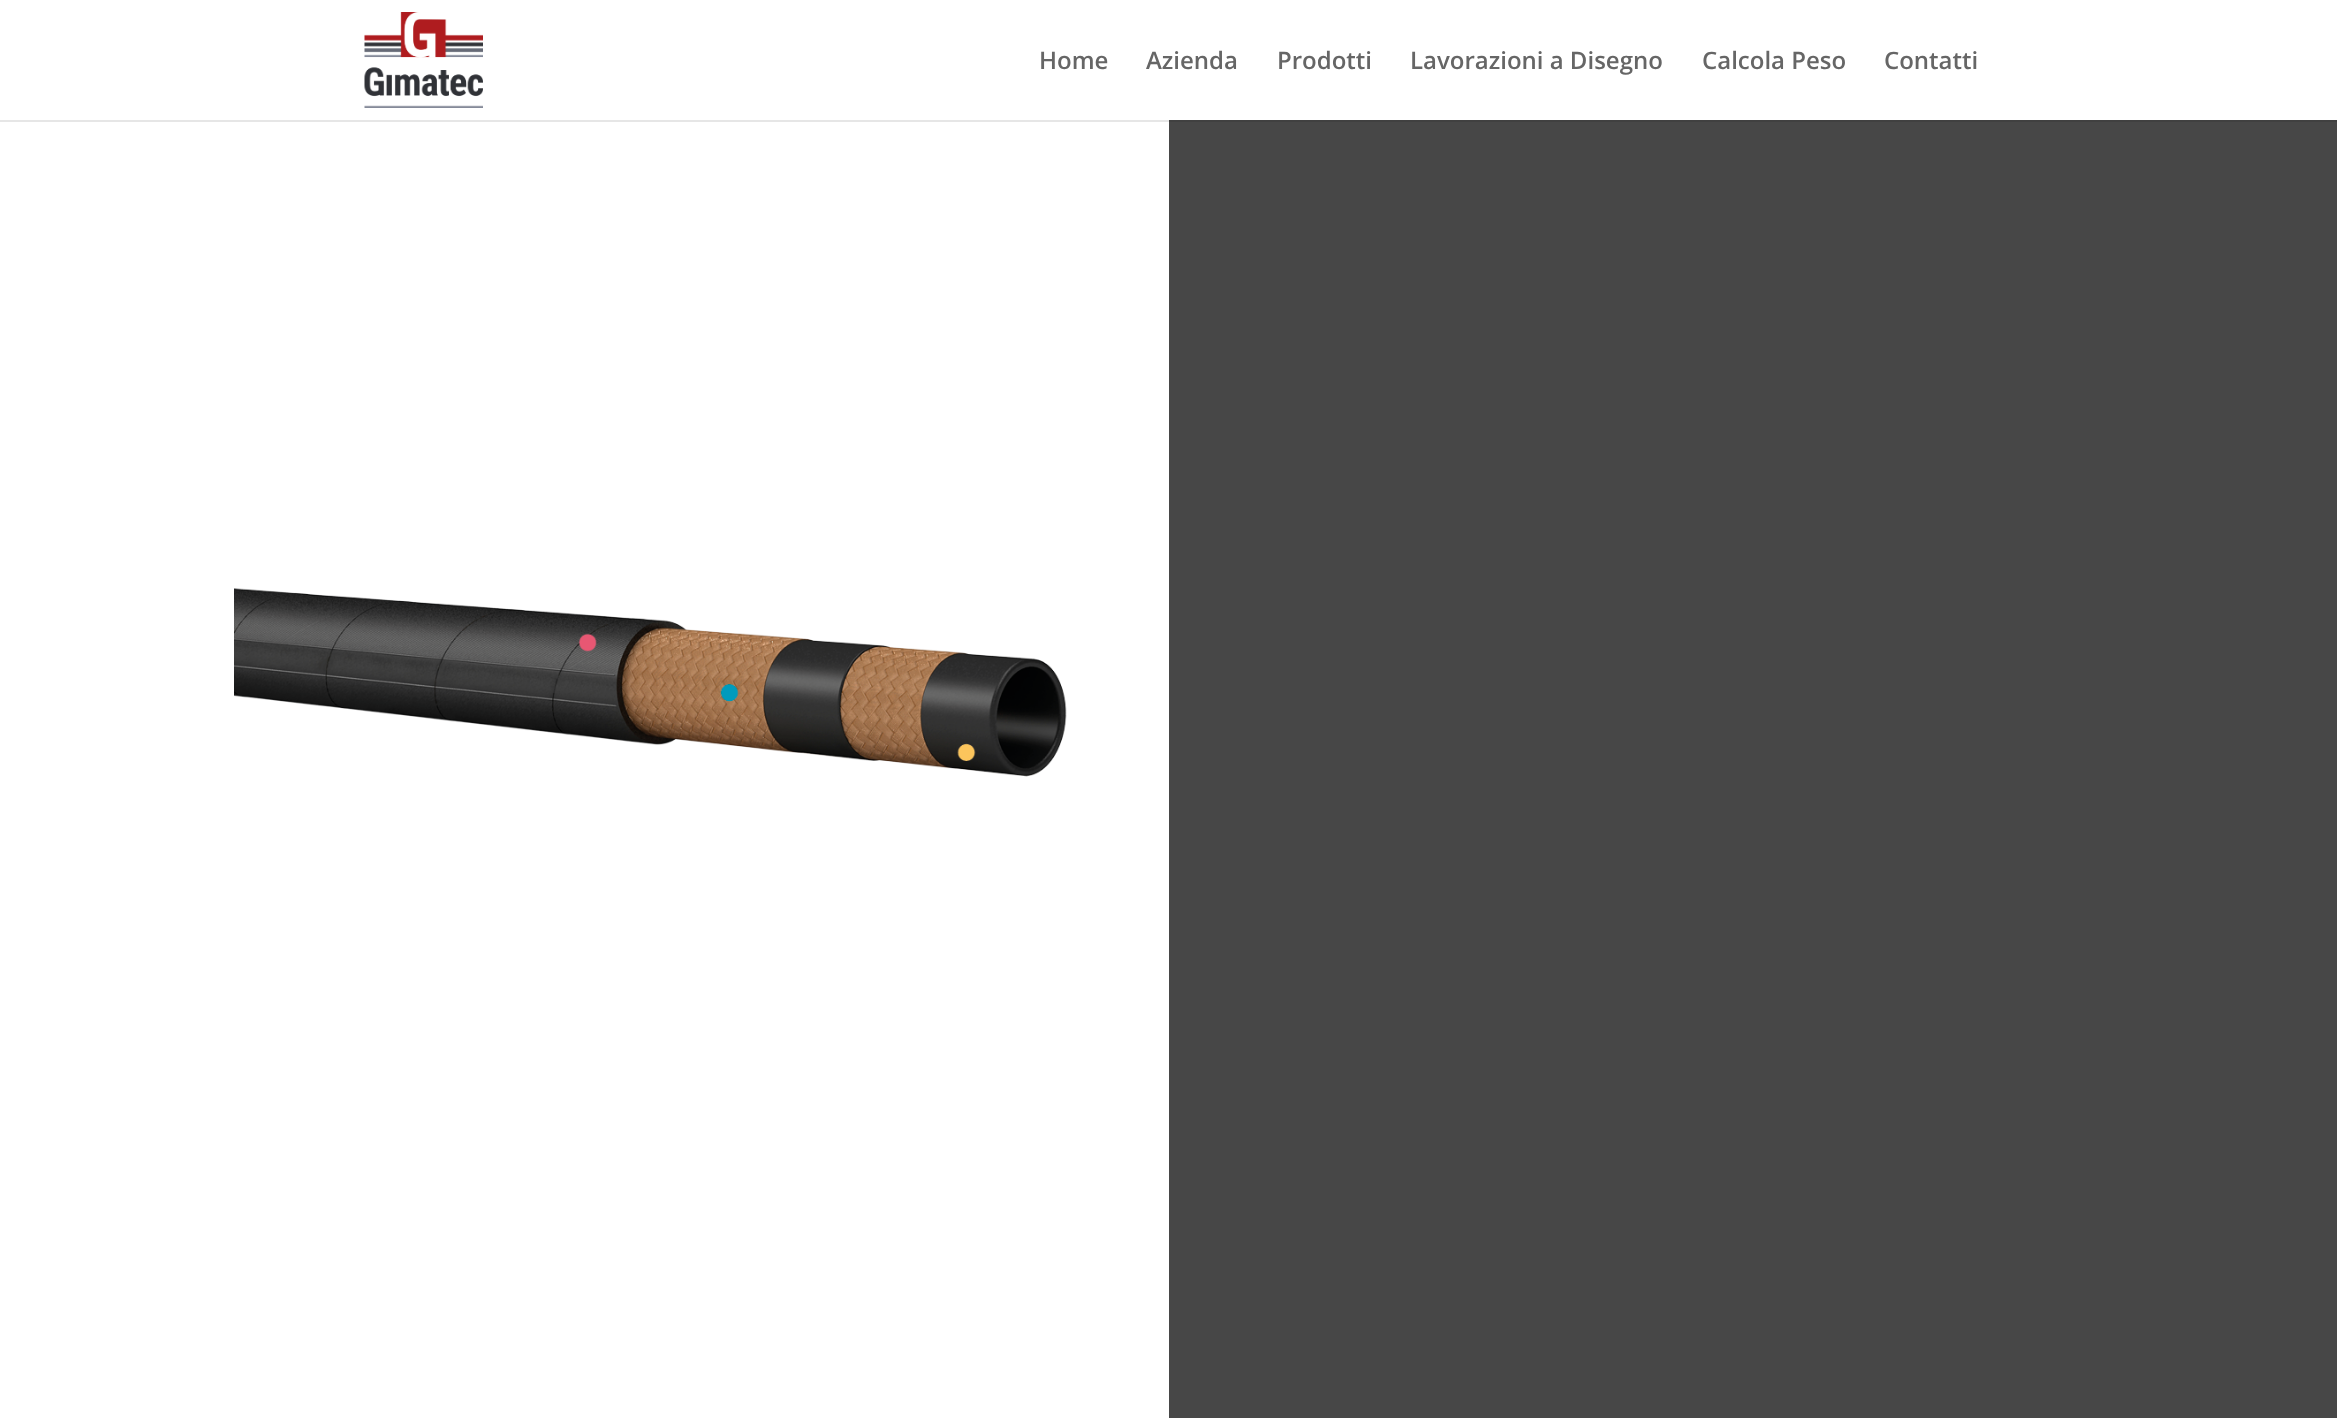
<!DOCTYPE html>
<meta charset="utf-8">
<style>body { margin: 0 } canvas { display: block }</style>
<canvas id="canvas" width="2337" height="1418"></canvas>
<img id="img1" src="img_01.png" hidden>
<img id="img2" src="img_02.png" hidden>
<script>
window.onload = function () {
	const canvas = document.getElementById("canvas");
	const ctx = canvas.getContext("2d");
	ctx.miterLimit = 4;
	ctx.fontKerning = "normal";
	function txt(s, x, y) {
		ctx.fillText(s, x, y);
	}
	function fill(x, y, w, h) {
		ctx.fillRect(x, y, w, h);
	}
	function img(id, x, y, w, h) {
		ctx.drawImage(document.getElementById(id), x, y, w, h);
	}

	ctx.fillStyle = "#FFFFFF";
	fill(0, 0, 2337, 1418);
	ctx.fillStyle = "#E6E6E6";
	fill(0, 120, 1169, 2);
	img("img1", 364, 12, 119, 96);
	ctx.fillStyle = "#474747";
	fill(1169, 122, 1168, 1296);
	ctx.fillStyle = "#404040";
	fill(1169, 120, 1168, 2);
	img("img2", 234, 588, 833, 189);
	ctx.font = "600 24px Open Sans";
	ctx.fillStyle = "#666666";
	txt("Home", 1039, 69);
	txt("Azienda", 1146, 69);
	txt("Prodotti", 1277, 69);
	txt("Lavorazioni a Disegno", 1410, 69);
	txt("Calcola Peso", 1702, 69);
	txt("Contatti", 1884, 69);
};
</script>
